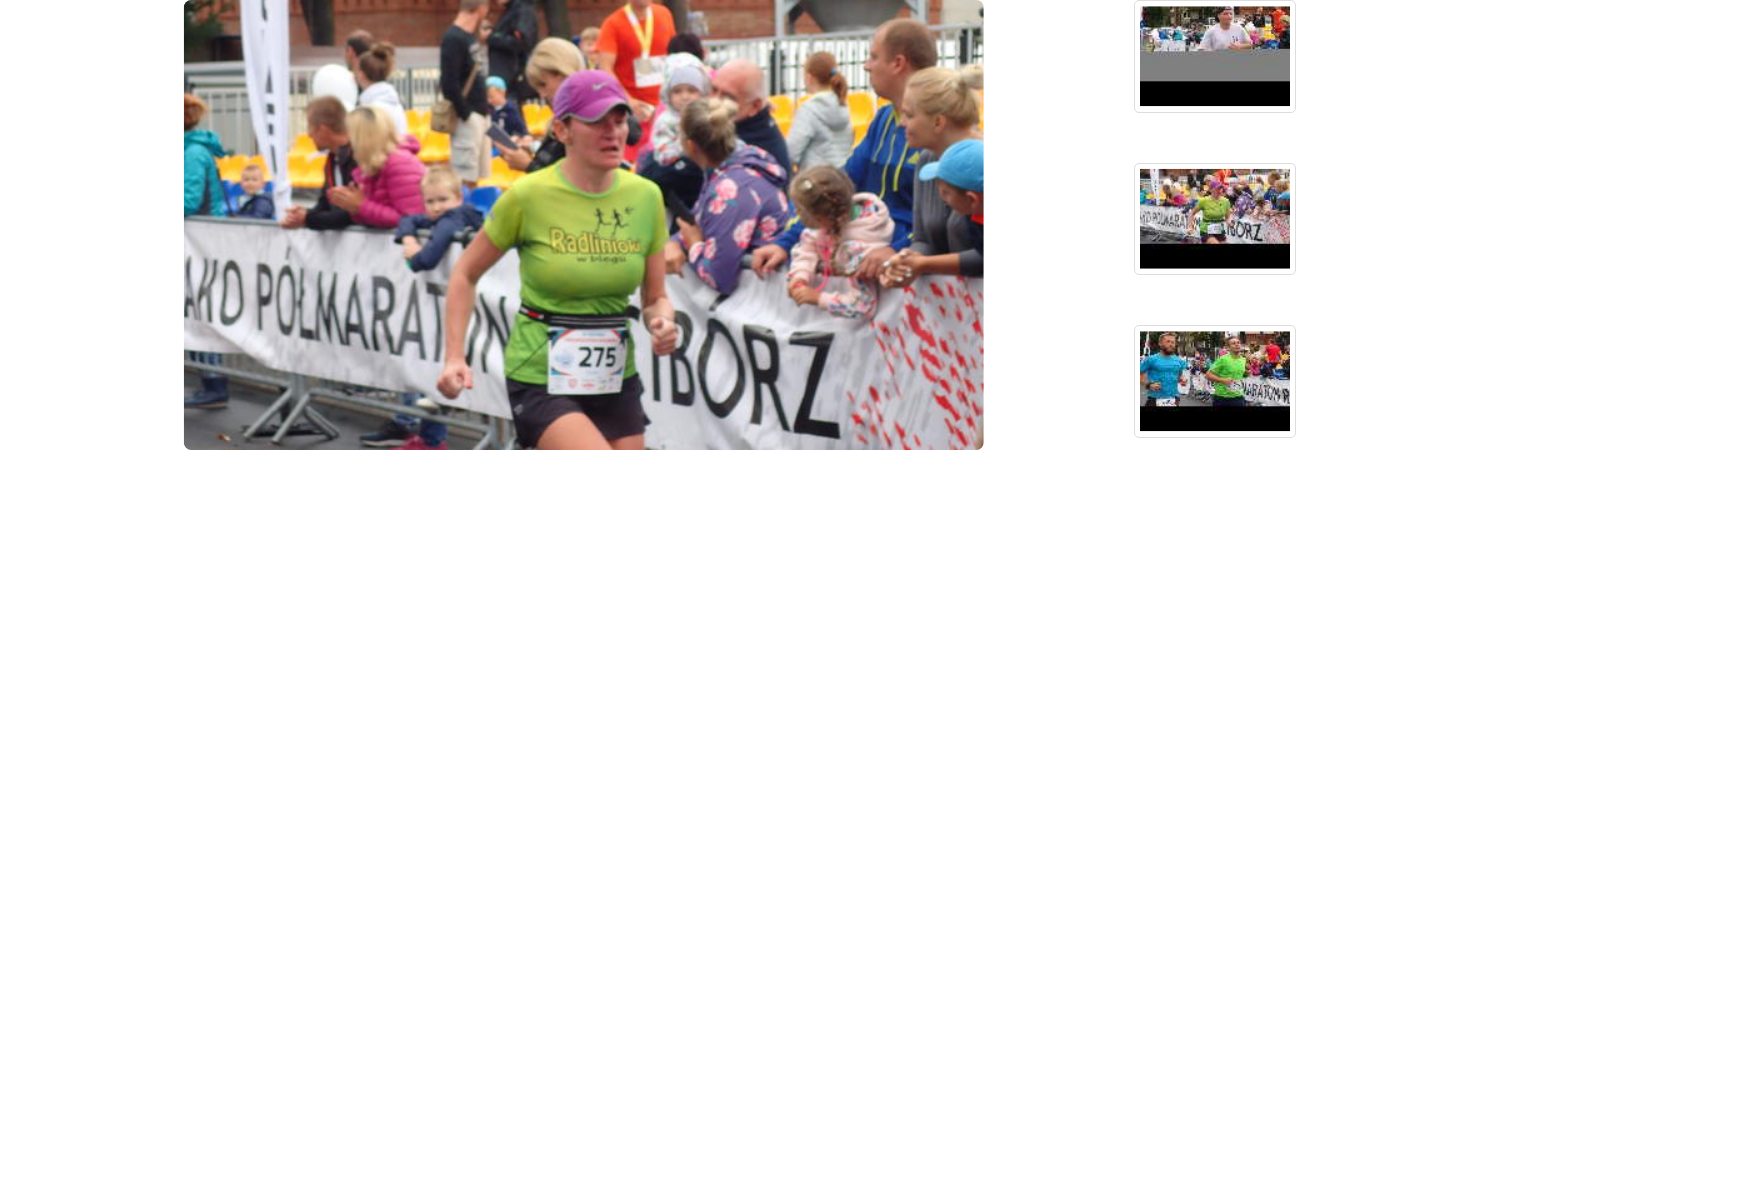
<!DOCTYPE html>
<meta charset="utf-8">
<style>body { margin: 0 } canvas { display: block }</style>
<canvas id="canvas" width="1753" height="1204"></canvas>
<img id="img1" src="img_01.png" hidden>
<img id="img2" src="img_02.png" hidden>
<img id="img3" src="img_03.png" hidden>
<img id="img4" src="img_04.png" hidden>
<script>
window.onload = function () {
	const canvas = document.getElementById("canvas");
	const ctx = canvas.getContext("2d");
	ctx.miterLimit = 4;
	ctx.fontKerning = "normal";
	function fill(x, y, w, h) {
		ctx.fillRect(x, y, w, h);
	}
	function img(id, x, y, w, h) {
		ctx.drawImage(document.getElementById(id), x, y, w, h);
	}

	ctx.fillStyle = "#FFFFFF";
	fill(0, 0, 1753, 1204);
	img("img1", 183, 0, 801, 450);
	ctx.beginPath();
	ctx.roundRect(1134.5, 0.5, 161, 112, 4.5);
	ctx.strokeStyle = "#DDDDDD";
	ctx.stroke();
	img("img2", 1140, 6, 150, 101);
	ctx.beginPath();
	ctx.roundRect(1134.5, 163.5, 161, 111, 4.5);
	ctx.stroke();
	img("img3", 1140, 168, 150, 101);
	ctx.beginPath();
	ctx.roundRect(1134.5, 325.5, 161, 112, 4.5);
	ctx.stroke();
	img("img4", 1140, 331, 150, 101);
};
</script>
